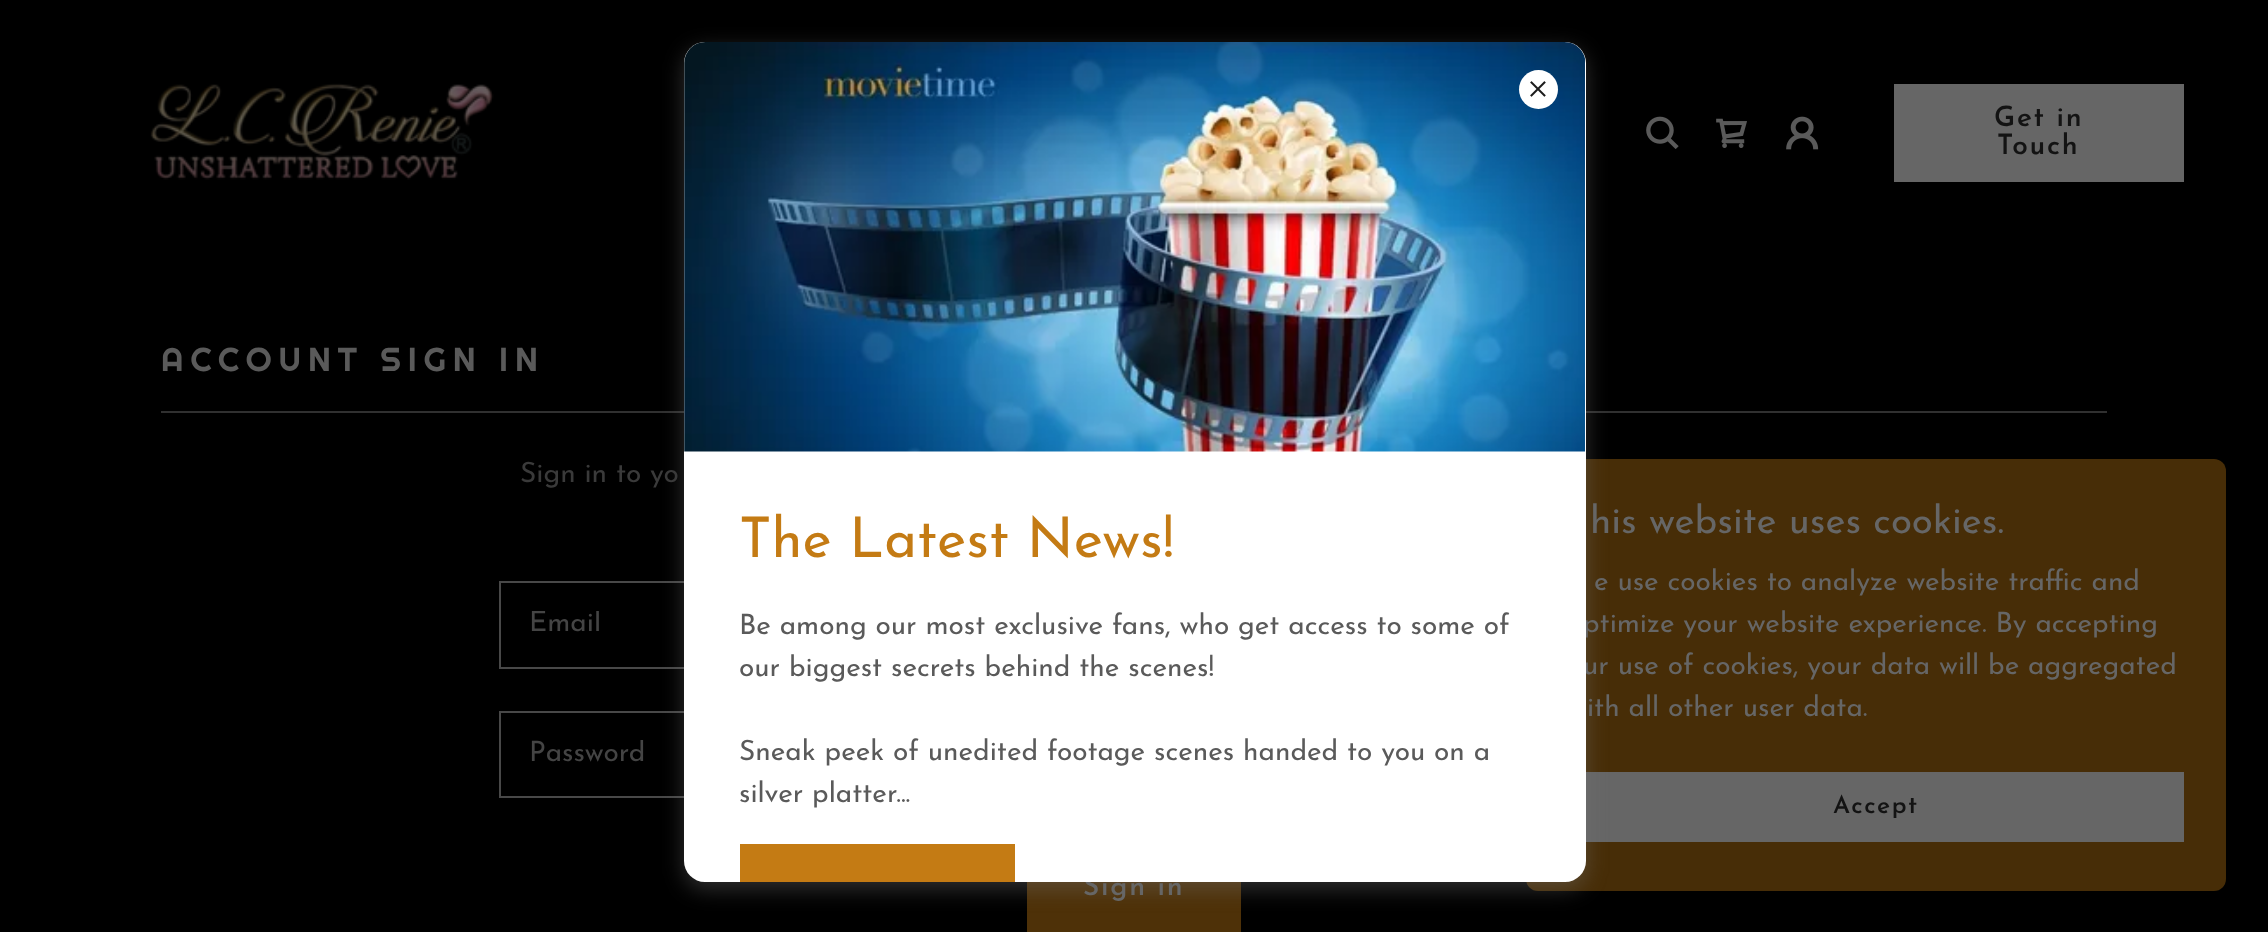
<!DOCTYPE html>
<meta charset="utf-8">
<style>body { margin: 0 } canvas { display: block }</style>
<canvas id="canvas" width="2268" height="932"></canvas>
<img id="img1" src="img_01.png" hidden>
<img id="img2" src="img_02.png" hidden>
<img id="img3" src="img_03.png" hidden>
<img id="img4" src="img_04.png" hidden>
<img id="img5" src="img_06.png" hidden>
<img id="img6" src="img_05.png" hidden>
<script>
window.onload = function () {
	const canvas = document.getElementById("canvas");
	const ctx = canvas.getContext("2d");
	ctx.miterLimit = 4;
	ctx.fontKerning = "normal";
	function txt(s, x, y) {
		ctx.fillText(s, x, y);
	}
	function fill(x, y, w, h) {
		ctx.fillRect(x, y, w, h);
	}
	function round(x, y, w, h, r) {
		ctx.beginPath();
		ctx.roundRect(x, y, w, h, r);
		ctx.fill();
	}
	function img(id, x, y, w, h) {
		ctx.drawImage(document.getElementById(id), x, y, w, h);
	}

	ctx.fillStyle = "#000000";
	fill(0, 0, 2268, 932);
	img("img1", 150, 83, 344, 97);
	img("img2", 1646, 116, 33, 33);
	img("img3", 1716, 118, 31, 30);
	img("img4", 1786, 116, 33, 34);
	ctx.fillStyle = "#666666";
	fill(1894, 84, 290, 98);
	ctx.fillStyle = "#303030";
	fill(161, 411, 1946, 2);
	ctx.strokeStyle = "#484848";
	ctx.lineWidth = 2;
	ctx.strokeRect(500, 582, 1268, 86);
	ctx.strokeRect(500, 712, 1268, 85);
	ctx.fillStyle = "#4E3108";
	fill(1027, 882, 214, 50);
	ctx.fillStyle = "rgba(0, 0, 0, 0.3)";
	ctx.filter = "blur(5px)";
	ctx.beginPath();
	ctx.roundRect(1526, 462, 700, 432, 12);
	ctx.fill();
	ctx.filter = "none";
	ctx.fillStyle = "#472D07";
	round(1526, 459, 700, 432, 12);
	ctx.fillStyle = "#666666";
	fill(1586, 772, 598, 70);
	ctx.fillStyle = "rgba(117, 117, 117, 0.4)";
	ctx.filter = "blur(10.5px)";
	ctx.beginPath();
	ctx.roundRect(684, 49, 902, 840, 21);
	ctx.fill();
	ctx.filter = "none";
	ctx.letterSpacing = "1.75px";
	ctx.font = "600 28px Josefin Sans";
	ctx.fillStyle = "#131313";
	txt("Get in", 1994, 126);
	txt("Touch", 1997, 154);
	ctx.letterSpacing = "7px";
	ctx.font = "33.25px Righteous";
	ctx.fillStyle = "#5A5A5A";
	txt("ACCOUNT SIGN IN", 161, 371);
	ctx.letterSpacing = "0px";
	ctx.font = "28px Josefin Sans";
	ctx.fillStyle = "#3A3A3A";
	txt("Sign in to yo", 520, 482);
	ctx.save();
	ctx.beginPath();
	ctx.rect(529, 611, 1211, 28);
	ctx.clip();
	ctx.fillStyle = "#444444";
	txt("Email", 529, 631);
	ctx.restore();
	ctx.save();
	ctx.beginPath();
	ctx.rect(529, 740, 1211, 28);
	ctx.clip();
	ctx.fillStyle = "#444444";
	txt("Password", 529, 761);
	ctx.restore();
	ctx.letterSpacing = "1.75px";
	ctx.font = "600 28px Josefin Sans";
	ctx.fillStyle = "#666666";
	txt("Sign in", 1083, 895);
	ctx.letterSpacing = "0px";
	ctx.font = "38.5px Josefin Sans";
	txt("his website uses cookies.", 1590, 533);
	ctx.font = "28px Josefin Sans";
	txt("e use cookies to analyze website traffic and", 1594, 590);
	txt("ptimize your website experience. By accepting", 1583, 632);
	txt("ur use of cookies, your data will be aggregated", 1583, 674);
	txt("ith all other user data.", 1587, 716);
	ctx.letterSpacing = "1.5px";
	ctx.font = "600 24.5px Josefin Sans";
	ctx.fillStyle = "#131313";
	txt("Accept", 1833, 813);
	ctx.fillStyle = "#FFFFFF";
	round(684, 42, 902, 840, 21);
	img("img5", 684, 42, 901, 410);
	ctx.beginPath();
	ctx.arc(1538.5, 89.5, 19.5, 0, Math.PI * 2);
	ctx.fill();
	img("img6", 1530, 81, 16, 16);
	ctx.letterSpacing = "0px";
	ctx.font = "56px Josefin Sans";
	ctx.fillStyle = "#C47B14";
	txt("The Latest News!", 739, 557);
	ctx.font = "28px Josefin Sans";
	ctx.fillStyle = "#5A5A5A";
	txt("Be among our most exclusive fans, who get access to some of", 739, 634);
	txt("our biggest secrets behind the scenes!", 739, 676);
	txt("Sneak peek of unedited footage scenes handed to you on a", 739, 760);
	txt("silver platter...", 739, 802);
	ctx.fillStyle = "#C47B14";
	fill(740, 844, 275, 38);
};
</script>
